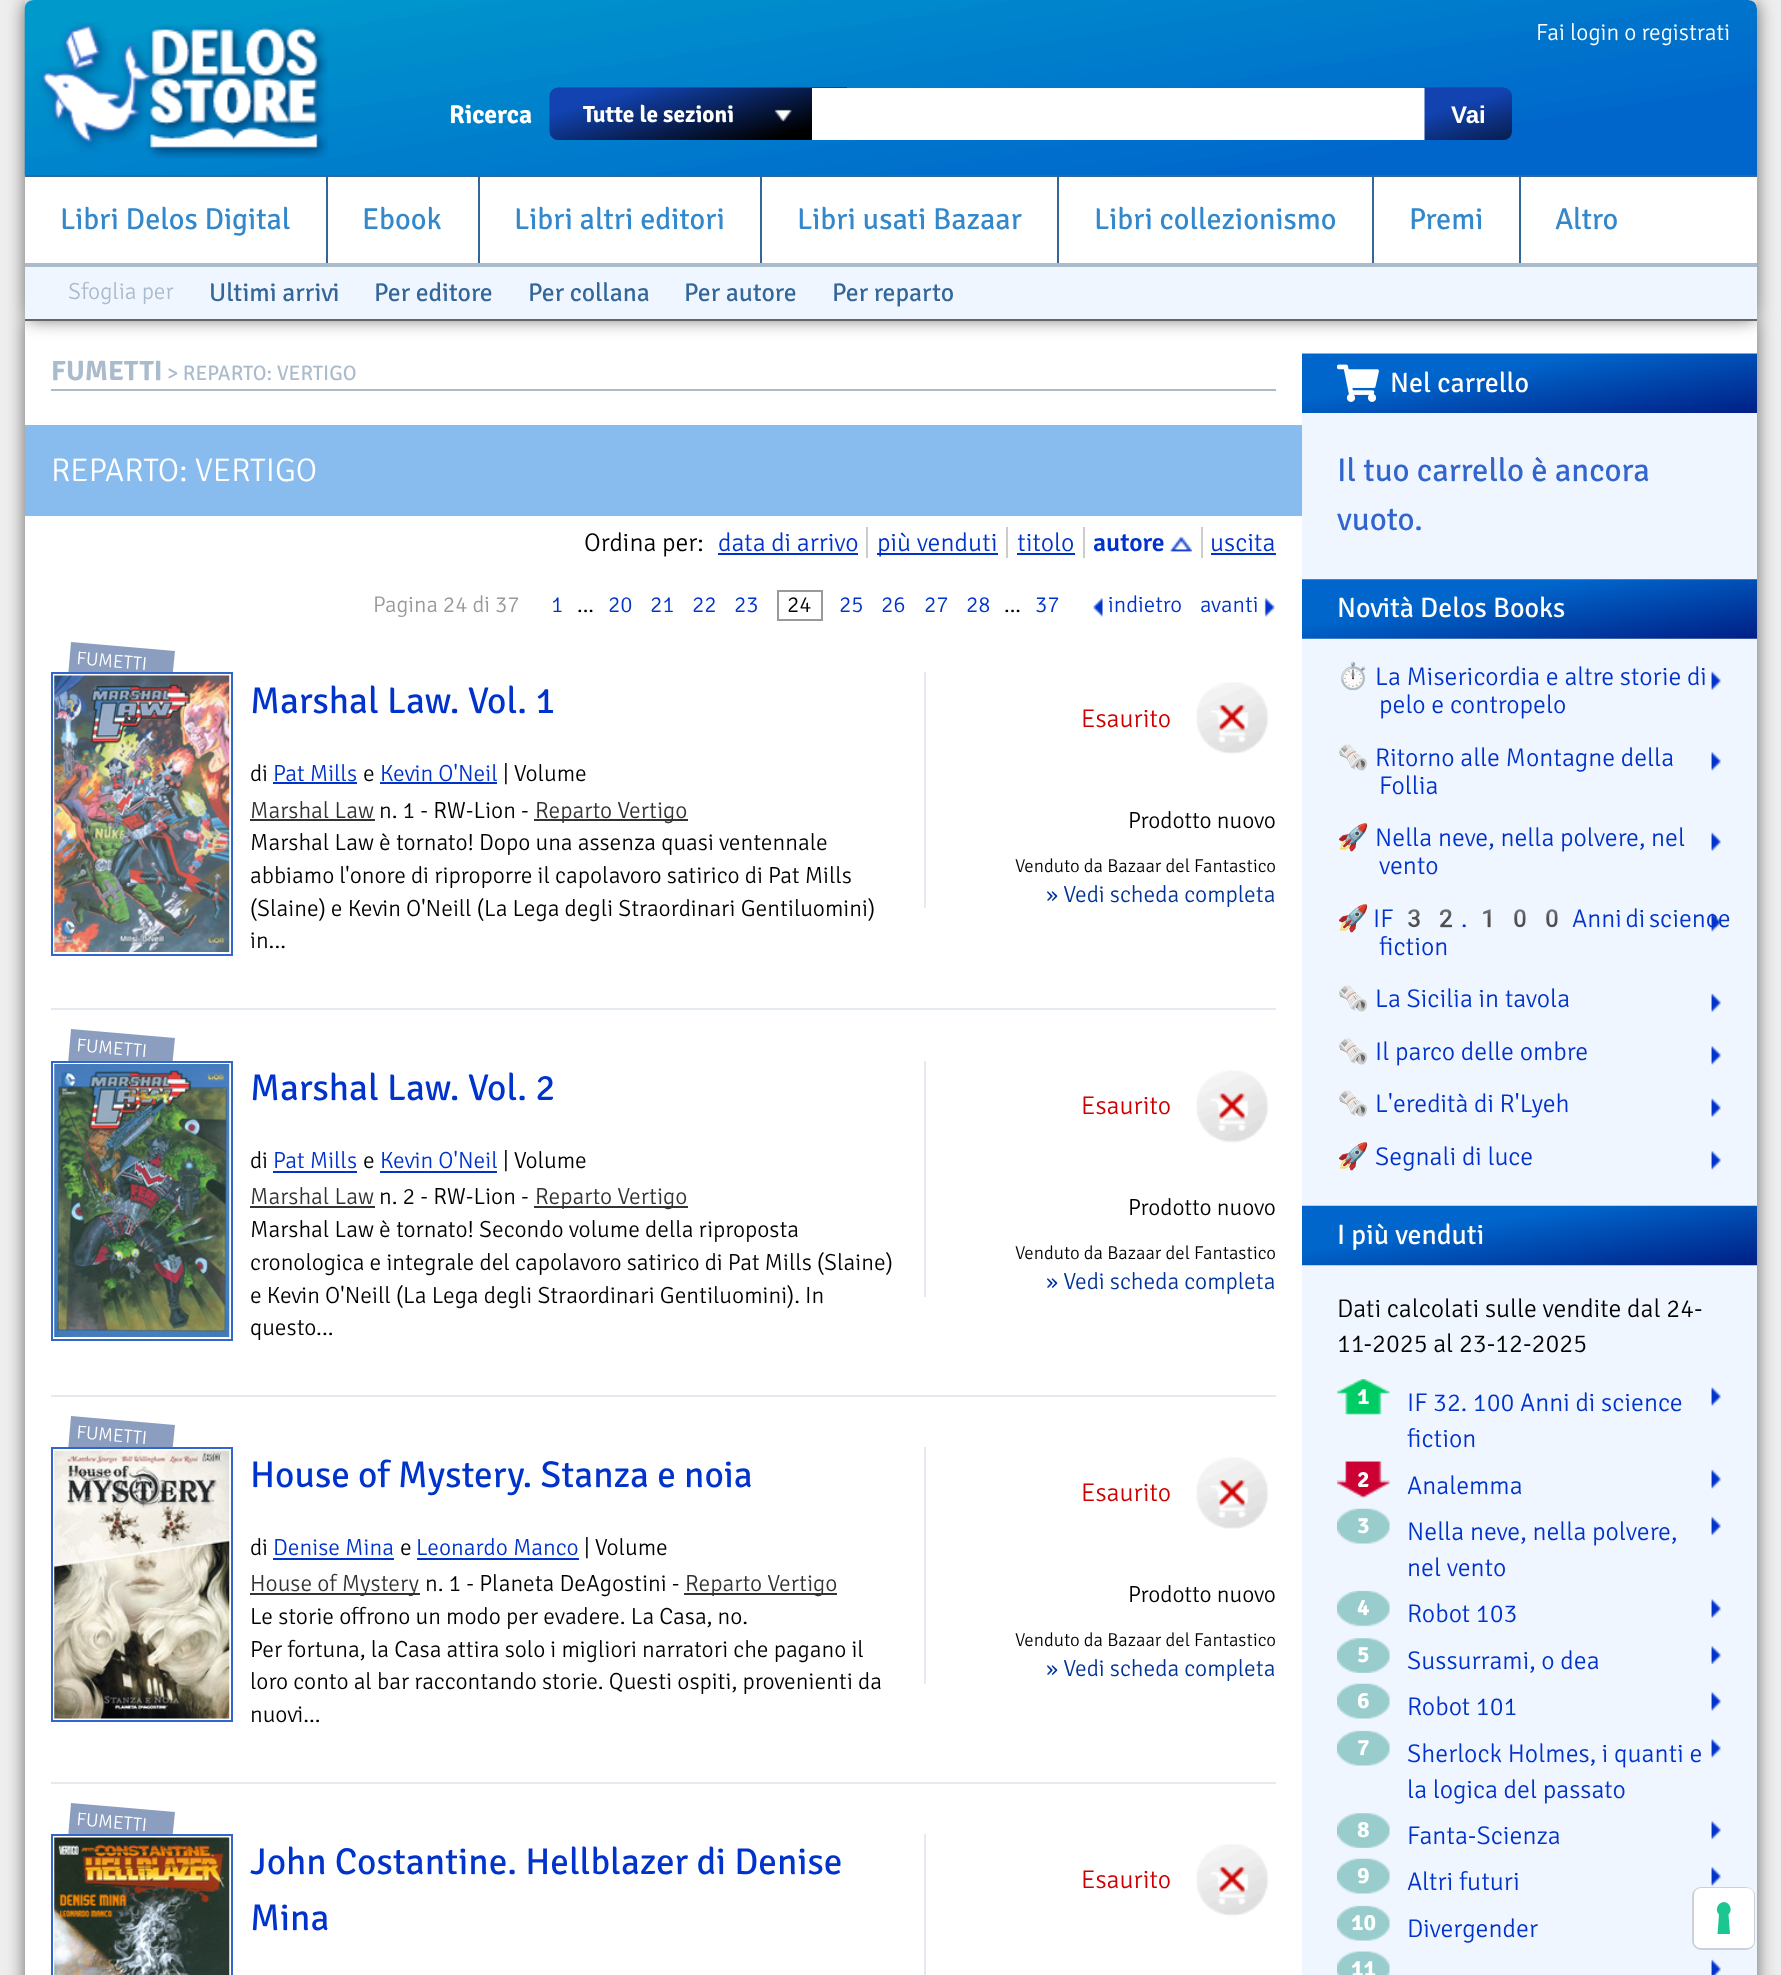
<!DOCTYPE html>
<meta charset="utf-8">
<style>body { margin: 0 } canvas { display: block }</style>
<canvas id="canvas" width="1781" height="1975"></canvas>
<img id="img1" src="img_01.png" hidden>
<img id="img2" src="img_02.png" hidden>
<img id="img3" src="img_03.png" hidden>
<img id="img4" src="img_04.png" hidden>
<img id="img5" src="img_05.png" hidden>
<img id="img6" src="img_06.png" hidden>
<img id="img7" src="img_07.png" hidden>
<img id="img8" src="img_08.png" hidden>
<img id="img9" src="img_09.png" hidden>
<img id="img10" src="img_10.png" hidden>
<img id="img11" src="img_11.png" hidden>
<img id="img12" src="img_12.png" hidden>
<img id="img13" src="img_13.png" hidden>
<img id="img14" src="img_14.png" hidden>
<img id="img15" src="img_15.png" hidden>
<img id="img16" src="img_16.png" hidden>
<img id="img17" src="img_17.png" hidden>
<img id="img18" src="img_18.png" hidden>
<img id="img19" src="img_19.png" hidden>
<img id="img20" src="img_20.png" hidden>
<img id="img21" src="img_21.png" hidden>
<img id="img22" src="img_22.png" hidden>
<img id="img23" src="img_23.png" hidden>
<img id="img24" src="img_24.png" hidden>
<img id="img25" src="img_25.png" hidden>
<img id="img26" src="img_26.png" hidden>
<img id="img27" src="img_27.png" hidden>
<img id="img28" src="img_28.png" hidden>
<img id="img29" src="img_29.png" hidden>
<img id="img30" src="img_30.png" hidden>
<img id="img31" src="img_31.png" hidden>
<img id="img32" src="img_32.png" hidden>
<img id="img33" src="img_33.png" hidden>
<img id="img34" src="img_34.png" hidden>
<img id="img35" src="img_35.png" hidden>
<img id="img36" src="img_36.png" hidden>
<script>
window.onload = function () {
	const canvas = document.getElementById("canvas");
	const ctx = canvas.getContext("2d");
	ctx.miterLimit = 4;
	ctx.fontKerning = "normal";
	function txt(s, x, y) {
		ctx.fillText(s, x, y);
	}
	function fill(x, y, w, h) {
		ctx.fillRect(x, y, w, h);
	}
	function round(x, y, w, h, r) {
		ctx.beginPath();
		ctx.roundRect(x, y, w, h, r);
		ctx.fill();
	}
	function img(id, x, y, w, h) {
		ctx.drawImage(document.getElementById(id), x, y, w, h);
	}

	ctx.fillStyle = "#EEEEEE";
	fill(0, 0, 1781, 1975);
	ctx.fillStyle = "#FFFFFF";
	fill(25, 0, 1732, 1975);
	ctx.save();
	ctx.beginPath();
	ctx.moveTo(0, 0);
	ctx.lineTo(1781, 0);
	ctx.lineTo(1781, 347);
	ctx.lineTo(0, 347);
	ctx.closePath();
	ctx.moveTo(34, 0);
	ctx.lineTo(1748, 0);
	ctx.bezierCurveTo(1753, 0, 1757, 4, 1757, 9);
	ctx.lineTo(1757, 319);
	ctx.lineTo(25, 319);
	ctx.lineTo(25, 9);
	ctx.bezierCurveTo(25, 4, 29, 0, 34, 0);
	ctx.closePath();
	ctx.clip("evenodd");
	ctx.fillStyle = "#666666";
	ctx.filter = "blur(9px)";
	ctx.beginPath();
	ctx.roundRect(25, 0, 1732, 319, 9);
	ctx.fill();
	ctx.filter = "none";
	ctx.restore();
	img("img1", 24, 0, 1733, 175);
	img("img2", 39, 22, 289, 137);
	img("img3", 549, 87, 298, 53);
	img("img4", 774, 109, 18, 13);
	fill(812, 88, 613, 52);
	img("img5", 1424, 87, 88, 53);
	ctx.fillStyle = "#336699";
	fill(25, 175, 1732, 2);
	fill(326, 177, 2, 87);
	fill(478, 177, 2, 87);
	fill(760, 177, 2, 87);
	fill(1057, 177, 2, 87);
	fill(1372, 177, 2, 87);
	fill(1519, 177, 2, 87);
	ctx.save();
	ctx.beginPath();
	ctx.moveTo(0, 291);
	ctx.lineTo(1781, 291);
	ctx.lineTo(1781, 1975);
	ctx.lineTo(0, 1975);
	ctx.closePath();
	ctx.moveTo(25, 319);
	ctx.lineTo(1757, 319);
	ctx.lineTo(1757, 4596);
	ctx.lineTo(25, 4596);
	ctx.closePath();
	ctx.clip("evenodd");
	ctx.fillStyle = "#666666";
	ctx.filter = "blur(9px)";
	ctx.beginPath();
	ctx.rect(25, 319, 1732, 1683);
	ctx.fill();
	ctx.filter = "none";
	ctx.restore();
	ctx.fillStyle = "#F0F6FF";
	fill(25, 267, 1732, 52);
	ctx.fillStyle = "#AABBCC";
	fill(25, 263, 1732, 4);
	ctx.fillStyle = "#666666";
	fill(25, 319, 1732, 2);
	ctx.fillStyle = "#AABBCC";
	fill(51, 389, 1225, 2);
	ctx.fillStyle = "#88BBEE";
	fill(25, 425, 1277, 91);
	ctx.fillStyle = "#0033CC";
	fill(718, 553, 140, 2);
	ctx.fillStyle = "#CCCCCC";
	fill(866, 527, 2, 31);
	ctx.fillStyle = "#0033CC";
	fill(877, 553, 121, 2);
	ctx.fillStyle = "#CCCCCC";
	fill(1006, 527, 2, 31);
	ctx.fillStyle = "#0033CC";
	fill(1017, 553, 58, 2);
	ctx.fillStyle = "#CCCCCC";
	fill(1083, 527, 2, 31);
	img("img6", 1170, 536, 22, 16);
	fill(1201, 527, 2, 31);
	ctx.fillStyle = "#0033CC";
	fill(1211, 553, 65, 2);
	ctx.strokeStyle = "#999999";
	ctx.lineWidth = 2;
	ctx.strokeRect(778, 591, 44, 29);
	img("img7", 1093, 598, 10, 19);
	img("img8", 1264, 598, 11, 19);
	ctx.fillStyle = "#8C9EBF";
	ctx.beginPath();
	ctx.moveTo(71, 642);
	ctx.lineTo(175, 651);
	ctx.lineTo(169, 710);
	ctx.lineTo(66, 701);
	ctx.closePath();
	ctx.fill();
	ctx.fillStyle = "#FFFFFF";
	fill(66, 674, 107, 36);
	ctx.strokeStyle = "#3366CC";
	ctx.strokeRect(52, 673, 180, 282);
	img("img9", 54, 675, 176, 277);
	ctx.fillStyle = "#0033CC";
	fill(273, 782, 84, 2);
	fill(380, 782, 117, 2);
	ctx.fillStyle = "#E5EAF0";
	fill(924, 672, 2, 236);
	img("img10", 1196, 682, 73, 72);
	fill(51, 1008, 1225, 2);
	ctx.fillStyle = "#333333";
	fill(250, 819, 125, 2);
	fill(534, 819, 154, 2);
	ctx.fillStyle = "#8C9EBF";
	ctx.beginPath();
	ctx.moveTo(71, 1029);
	ctx.lineTo(175, 1038);
	ctx.lineTo(169, 1097);
	ctx.lineTo(66, 1088);
	ctx.closePath();
	ctx.fill();
	ctx.fillStyle = "#FFFFFF";
	fill(66, 1063, 107, 34);
	ctx.strokeRect(52, 1062, 180, 278);
	img("img11", 54, 1064, 176, 273);
	ctx.fillStyle = "#0033CC";
	fill(273, 1171, 84, 2);
	fill(380, 1171, 117, 2);
	ctx.fillStyle = "#E5EAF0";
	fill(924, 1061, 2, 236);
	img("img12", 1196, 1070, 73, 73);
	fill(51, 1395, 1225, 2);
	ctx.fillStyle = "#333333";
	fill(250, 1206, 125, 2);
	fill(534, 1206, 154, 2);
	ctx.fillStyle = "#8C9EBF";
	ctx.beginPath();
	ctx.moveTo(71, 1416);
	ctx.lineTo(175, 1425);
	ctx.lineTo(169, 1484);
	ctx.lineTo(66, 1475);
	ctx.closePath();
	ctx.fill();
	ctx.fillStyle = "#FFFFFF";
	fill(66, 1449, 107, 35);
	ctx.strokeRect(52, 1448, 180, 273);
	img("img13", 54, 1450, 176, 269);
	ctx.fillStyle = "#0033CC";
	fill(273, 1558, 121, 2);
	fill(417, 1558, 162, 2);
	ctx.fillStyle = "#E5EAF0";
	fill(924, 1447, 2, 237);
	img("img14", 1196, 1457, 73, 72);
	fill(51, 1782, 1225, 2);
	ctx.fillStyle = "#333333";
	fill(250, 1593, 170, 2);
	fill(684, 1593, 153, 2);
	ctx.fillStyle = "#8C9EBF";
	ctx.beginPath();
	ctx.moveTo(71, 1803);
	ctx.lineTo(175, 1812);
	ctx.lineTo(169, 1871);
	ctx.lineTo(66, 1862);
	ctx.closePath();
	ctx.fill();
	ctx.fillStyle = "#FFFFFF";
	fill(66, 1836, 107, 35);
	ctx.strokeRect(52, 1835, 180, 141);
	img("img15", 54, 1837, 176, 138);
	ctx.fillStyle = "#E5EAF0";
	fill(924, 1834, 2, 141);
	img("img10", 1196, 1844, 73, 72);
	ctx.fillStyle = "#F0F6FF";
	fill(1302, 413, 455, 1562);
	img("img16", 1302, 353, 455, 60);
	img("img17", 1337, 364, 42, 38);
	img("img18", 1302, 579, 455, 60);
	img("img19", 1711, 671, 10, 19);
	img("img20", 1711, 752, 10, 19);
	img("img19", 1711, 832, 10, 19);
	img("img20", 1711, 913, 10, 19);
	img("img19", 1711, 993, 10, 19);
	img("img20", 1711, 1046, 10, 19);
	img("img19", 1711, 1098, 10, 19);
	img("img20", 1711, 1151, 10, 19);
	img("img21", 1302, 1205, 455, 61);
	img("img22", 1711, 1387, 10, 19);
	img("img23", 1337, 1379, 53, 36);
	img("img24", 1711, 1469, 10, 20);
	img("img25", 1337, 1461, 53, 37);
	img("img26", 1711, 1516, 10, 20);
	img("img27", 1337, 1508, 53, 36);
	img("img28", 1711, 1599, 10, 19);
	img("img29", 1337, 1590, 53, 37);
	img("img30", 1711, 1646, 10, 19);
	img("img31", 1337, 1638, 53, 35);
	img("img32", 1711, 1692, 10, 19);
	img("img27", 1337, 1683, 53, 36);
	img("img33", 1711, 1739, 10, 19);
	img("img34", 1337, 1730, 53, 36);
	img("img30", 1711, 1821, 10, 19);
	img("img31", 1337, 1813, 53, 35);
	img("img32", 1711, 1867, 10, 19);
	img("img27", 1337, 1858, 53, 36);
	img("img34", 1337, 1905, 53, 36);
	img("img35", 1711, 1959, 10, 16);
	img("img36", 1337, 1951, 53, 24);
	ctx.beginPath();
	ctx.roundRect(1693, 1888, 61, 61, 8);
	ctx.strokeStyle = "#CCD1D9";
	ctx.stroke();
	ctx.fillStyle = "#FFFFFF";
	round(1694, 1888, 60, 60, 7);
	ctx.fillStyle = "#1CC691";
	ctx.beginPath();
	ctx.moveTo(1724, 1902);
	ctx.bezierCurveTo(1730, 1902.5, 1733, 1910.5, 1728.5, 1914.5);
	ctx.lineTo(1730, 1934);
	ctx.lineTo(1717.5, 1934);
	ctx.lineTo(1719, 1914.5);
	ctx.bezierCurveTo(1714.5, 1910.5, 1717.5, 1902.5, 1724, 1902);
	ctx.closePath();
	ctx.fill("evenodd");
	ctx.font = "300 23.3px Signika Negative";
	ctx.fillStyle = "#FFFFFF";
	txt("Fai login o registrati", 1536, 40);
	ctx.font = "bold 25.7px Signika Negative";
	txt("Ricerca", 449, 123);
	ctx.save();
	ctx.beginPath();
	ctx.rect(583, 98, 236, 33);
	ctx.clip();
	ctx.font = "bold 23.3px Signika Negative";
	txt("Tutte le sezioni", 583, 122);
	ctx.restore();
	ctx.font = "bold 24px Liberation Sans";
	txt("Vai", 1451, 123);
	ctx.font = "30.25px Signika Negative";
	ctx.fillStyle = "#3388CC";
	txt("Libri Delos Digital", 60, 229);
	txt("Ebook", 362, 229);
	txt("Libri altri editori", 514, 229);
	txt("Libri usati Bazaar", 797, 229);
	txt("Libri collezionismo", 1094, 229);
	txt("Premi", 1409, 229);
	txt("Altro", 1555, 229);
	ctx.font = "300 23.3px Signika Negative";
	ctx.fillStyle = "#AABBCC";
	txt("Sfoglia per", 68, 299);
	ctx.font = "25.7px Signika Negative";
	ctx.fillStyle = "#336699";
	txt("Ultimi arrivi", 209, 301);
	txt("Per editore", 374, 301);
	txt("Per collana", 528, 301);
	txt("Per autore", 684, 301);
	txt("Per reparto", 832, 301);
	ctx.font = "bold 28px Signika Negative";
	ctx.fillStyle = "#AABBCC";
	txt("FUMETTI", 51, 380);
	ctx.font = "21px Signika Negative";
	txt("> REPARTO: VERTIGO", 167, 380);
	ctx.font = "300 32.75px Signika Negative";
	ctx.fillStyle = "#FFFFFF";
	txt("REPARTO: VERTIGO", 51, 481);
	ctx.font = "300 25.7px Signika Negative";
	ctx.fillStyle = "#000000";
	txt("Ordina per:", 584, 551);
	ctx.fillStyle = "#0033CC";
	txt("data di arrivo", 718, 551);
	txt("più venduti", 877, 551);
	txt("titolo", 1017, 551);
	ctx.font = "600 25.7px Signika Negative";
	txt("autore", 1093, 551);
	ctx.font = "300 25.7px Signika Negative";
	txt("uscita", 1210, 551);
	ctx.font = "300 22.75px Signika Negative";
	ctx.fillStyle = "#999999";
	txt("Pagina 24 di 37", 373, 612);
	ctx.fillStyle = "#0033CC";
	txt("1", 551, 612);
	ctx.fillStyle = "#000000";
	txt("...", 577, 612);
	ctx.fillStyle = "#0033CC";
	txt("20", 608, 612);
	txt("21", 650, 612);
	txt("22", 692, 612);
	txt("23", 734, 612);
	ctx.fillStyle = "#000000";
	txt("24", 787, 612);
	ctx.fillStyle = "#0033CC";
	txt("25", 839, 612);
	txt("26", 881, 612);
	txt("27", 924, 612);
	txt("28", 966, 612);
	ctx.fillStyle = "#000000";
	txt("...", 1004, 612);
	ctx.fillStyle = "#0033CC";
	txt("37", 1035, 612);
	txt("indietro", 1108, 612);
	txt("avanti", 1200, 612);
	ctx.font = "300 18.7px Signika Negative";
	ctx.fillStyle = "#FFFFFF";
	ctx.save();
	ctx.translate(76, 664);
	ctx.rotate(5 * Math.PI / 180);
	ctx.fillText("FUMETTI", 0, 0);
	ctx.restore();
	ctx.font = "37.3px Signika Negative";
	ctx.fillStyle = "#0033CC";
	txt("Marshal Law. Vol. 1", 250, 713);
	ctx.font = "300 23.3px Signika Negative";
	ctx.fillStyle = "#000000";
	txt("di", 250, 781);
	ctx.fillStyle = "#0033CC";
	txt("Pat Mills", 273, 781);
	ctx.fillStyle = "#000000";
	txt("e", 363, 781);
	ctx.fillStyle = "#0033CC";
	txt("Kevin O'Neil", 380, 781);
	ctx.fillStyle = "#000000";
	txt("| Volume", 503, 781);
	ctx.font = "300 25.7px Signika Negative";
	ctx.fillStyle = "#CC0000";
	txt("Esaurito", 1081, 727);
	ctx.font = "300 23.3px Signika Negative";
	ctx.fillStyle = "#000000";
	txt("Prodotto nuovo", 1128, 828);
	ctx.font = "300 18.7px Signika Negative";
	txt("Venduto da Bazaar del Fantastico", 1015, 872);
	ctx.font = "300 23.3px Signika Negative";
	ctx.fillStyle = "#003399";
	txt("» Vedi scheda completa", 1046, 902);
	ctx.fillStyle = "#333333";
	txt("Marshal Law", 250, 818);
	ctx.fillStyle = "#000000";
	txt("n. 1 - RW-Lion -", 379, 818);
	ctx.fillStyle = "#333333";
	txt("Reparto Vertigo", 535, 818);
	ctx.fillStyle = "#000000";
	txt("Marshal Law è tornato! Dopo una assenza quasi ventennale", 250, 850);
	txt("abbiamo l'onore di riproporre il capolavoro satirico di Pat Mills", 250, 883);
	txt("(Slaine) e Kevin O'Neill (La Lega degli Straordinari Gentiluomini)", 250, 916);
	txt("in...", 250, 948);
	ctx.font = "300 18.7px Signika Negative";
	ctx.fillStyle = "#FFFFFF";
	ctx.save();
	ctx.translate(76, 1051);
	ctx.rotate(5 * Math.PI / 180);
	ctx.fillText("FUMETTI", 0, 0);
	ctx.restore();
	ctx.font = "37.3px Signika Negative";
	ctx.fillStyle = "#0033CC";
	txt("Marshal Law. Vol. 2", 250, 1100);
	ctx.font = "300 23.3px Signika Negative";
	ctx.fillStyle = "#000000";
	txt("di", 250, 1168);
	ctx.fillStyle = "#0033CC";
	txt("Pat Mills", 273, 1168);
	ctx.fillStyle = "#000000";
	txt("e", 363, 1168);
	ctx.fillStyle = "#0033CC";
	txt("Kevin O'Neil", 380, 1168);
	ctx.fillStyle = "#000000";
	txt("| Volume", 503, 1168);
	ctx.font = "300 25.7px Signika Negative";
	ctx.fillStyle = "#CC0000";
	txt("Esaurito", 1081, 1114);
	ctx.font = "300 23.3px Signika Negative";
	ctx.fillStyle = "#000000";
	txt("Prodotto nuovo", 1128, 1215);
	ctx.font = "300 18.7px Signika Negative";
	txt("Venduto da Bazaar del Fantastico", 1015, 1259);
	ctx.font = "300 23.3px Signika Negative";
	ctx.fillStyle = "#003399";
	txt("» Vedi scheda completa", 1046, 1289);
	ctx.fillStyle = "#333333";
	txt("Marshal Law", 250, 1204);
	ctx.fillStyle = "#000000";
	txt("n. 2 - RW-Lion -", 379, 1204);
	ctx.fillStyle = "#333333";
	txt("Reparto Vertigo", 535, 1204);
	ctx.fillStyle = "#000000";
	txt("Marshal Law è tornato! Secondo volume della riproposta", 250, 1237);
	txt("cronologica e integrale del capolavoro satirico di Pat Mills (Slaine)", 250, 1270);
	txt("e Kevin O'Neill (La Lega degli Straordinari Gentiluomini). In", 250, 1303);
	txt("questo...", 250, 1335);
	ctx.font = "300 18.7px Signika Negative";
	ctx.fillStyle = "#FFFFFF";
	ctx.save();
	ctx.translate(76, 1438);
	ctx.rotate(5 * Math.PI / 180);
	ctx.fillText("FUMETTI", 0, 0);
	ctx.restore();
	ctx.font = "37.3px Signika Negative";
	ctx.fillStyle = "#0033CC";
	txt("House of Mystery. Stanza e noia", 250, 1487);
	ctx.font = "300 23.3px Signika Negative";
	ctx.fillStyle = "#000000";
	txt("di", 250, 1555);
	ctx.fillStyle = "#0033CC";
	txt("Denise Mina", 273, 1555);
	ctx.fillStyle = "#000000";
	txt("e", 400, 1555);
	ctx.fillStyle = "#0033CC";
	txt("Leonardo Manco", 416, 1555);
	ctx.fillStyle = "#000000";
	txt("| Volume", 584, 1555);
	ctx.font = "300 25.7px Signika Negative";
	ctx.fillStyle = "#CC0000";
	txt("Esaurito", 1081, 1501);
	ctx.font = "300 23.3px Signika Negative";
	ctx.fillStyle = "#000000";
	txt("Prodotto nuovo", 1128, 1602);
	ctx.font = "300 18.7px Signika Negative";
	txt("Venduto da Bazaar del Fantastico", 1015, 1646);
	ctx.font = "300 23.3px Signika Negative";
	ctx.fillStyle = "#003399";
	txt("» Vedi scheda completa", 1046, 1676);
	ctx.fillStyle = "#333333";
	txt("House of Mystery", 250, 1591);
	ctx.fillStyle = "#000000";
	txt("n. 1 - Planeta DeAgostini -", 425, 1591);
	ctx.fillStyle = "#333333";
	txt("Reparto Vertigo", 685, 1591);
	ctx.fillStyle = "#000000";
	txt("Le storie offrono un modo per evadere. La Casa, no.", 250, 1624);
	txt("Per fortuna, la Casa attira solo i migliori narratori che pagano il", 250, 1657);
	txt("loro conto al bar raccontando storie. Questi ospiti, provenienti da", 250, 1689);
	txt("nuovi...", 250, 1722);
	ctx.font = "300 18.7px Signika Negative";
	ctx.fillStyle = "#FFFFFF";
	ctx.save();
	ctx.translate(76, 1825);
	ctx.rotate(5 * Math.PI / 180);
	ctx.fillText("FUMETTI", 0, 0);
	ctx.restore();
	ctx.font = "37.3px Signika Negative";
	ctx.fillStyle = "#0033CC";
	txt("John Costantine. Hellblazer di Denise", 250, 1874);
	txt("Mina", 250, 1930);
	ctx.font = "300 25.7px Signika Negative";
	ctx.fillStyle = "#CC0000";
	txt("Esaurito", 1081, 1888);
	ctx.font = "28px Signika Negative";
	ctx.fillStyle = "#FFFFFF";
	txt("Nel carrello", 1390, 392);
	ctx.font = "32.75px Signika Negative";
	ctx.fillStyle = "#3366CC";
	txt("Il tuo carrello è ancora", 1337, 481);
	txt("vuoto.", 1337, 530);
	ctx.font = "28px Signika Negative";
	ctx.fillStyle = "#FFFFFF";
	txt("Novità Delos Books", 1337, 617);
	ctx.font = "25.7px Noto Color Emoji";
	ctx.fillStyle = "#0033CC";
	txt("⏱️", 1337, 685);
	ctx.font = "300 25.7px Signika Negative";
	txt("La Misericordia e altre storie di", 1375, 685);
	txt("pelo e contropelo", 1379, 713);
	ctx.font = "25.7px Noto Color Emoji";
	txt("🗞️", 1337, 766);
	ctx.font = "300 25.7px Signika Negative";
	txt("Ritorno alle Montagne della", 1375, 766);
	txt("Follia", 1379, 794);
	ctx.font = "25.7px Noto Color Emoji";
	txt("🚀", 1337, 846);
	ctx.font = "300 25.7px Signika Negative";
	txt("Nella neve, nella polvere, nel", 1375, 846);
	txt("vento", 1379, 874);
	ctx.font = "25.7px Noto Color Emoji";
	txt("🚀", 1337, 927);
	ctx.font = "300 25.7px Signika Negative";
	txt("IF", 1373, 927);
	ctx.font = "25.7px Noto Color Emoji";
	txt("32", 1398, 927);
	ctx.font = "300 25.7px Signika Negative";
	txt(".", 1461, 927);
	ctx.font = "25.7px Noto Color Emoji";
	txt("100", 1472, 927);
	ctx.wordSpacing = "-2px";
	ctx.font = "300 25.7px Signika Negative";
	txt("Anni di science", 1572, 927);
	ctx.wordSpacing = "0px";
	txt("fiction", 1379, 955);
	ctx.font = "25.7px Noto Color Emoji";
	txt("🗞️", 1337, 1007);
	ctx.font = "300 25.7px Signika Negative";
	txt("La Sicilia in tavola", 1375, 1007);
	ctx.font = "25.7px Noto Color Emoji";
	txt("🗞️", 1337, 1060);
	ctx.font = "300 25.7px Signika Negative";
	txt("Il parco delle ombre", 1375, 1060);
	ctx.font = "25.7px Noto Color Emoji";
	txt("🗞️", 1337, 1112);
	ctx.font = "300 25.7px Signika Negative";
	txt("L'eredità di R'Lyeh", 1375, 1112);
	ctx.font = "25.7px Noto Color Emoji";
	txt("🚀", 1337, 1165);
	ctx.font = "300 25.7px Signika Negative";
	txt("Segnali di luce", 1375, 1165);
	ctx.font = "28px Signika Negative";
	ctx.fillStyle = "#FFFFFF";
	txt("I più venduti", 1337, 1244);
	ctx.font = "300 25.7px Signika Negative";
	ctx.fillStyle = "#000000";
	txt("Dati calcolati sulle vendite dal 24-", 1337, 1317);
	txt("11-2025 al 23-12-2025", 1337, 1352);
	ctx.font = "bold 23.3px Signika Negative";
	ctx.fillStyle = "#FFFFFF";
	txt("1", 1357, 1404);
	ctx.font = "300 25.7px Signika Negative";
	ctx.fillStyle = "#0033CC";
	txt("IF 32. 100 Anni di science", 1407, 1411);
	txt("fiction", 1407, 1447);
	ctx.font = "bold 23.3px Signika Negative";
	ctx.fillStyle = "#FFFFFF";
	txt("2", 1357, 1487);
	ctx.font = "300 25.7px Signika Negative";
	ctx.fillStyle = "#0033CC";
	txt("Analemma", 1407, 1494);
	ctx.font = "bold 23.3px Signika Negative";
	ctx.fillStyle = "#FFFFFF";
	txt("3", 1357, 1533);
	ctx.font = "300 25.7px Signika Negative";
	ctx.fillStyle = "#0033CC";
	txt("Nella neve, nella polvere,", 1407, 1540);
	txt("nel vento", 1407, 1576);
	ctx.font = "bold 23.3px Signika Negative";
	ctx.fillStyle = "#FFFFFF";
	txt("4", 1357, 1615);
	ctx.font = "300 25.7px Signika Negative";
	ctx.fillStyle = "#0033CC";
	txt("Robot 103", 1407, 1622);
	ctx.font = "bold 23.3px Signika Negative";
	ctx.fillStyle = "#FFFFFF";
	txt("5", 1357, 1662);
	ctx.font = "300 25.7px Signika Negative";
	ctx.fillStyle = "#0033CC";
	txt("Sussurrami, o dea", 1407, 1669);
	ctx.font = "bold 23.3px Signika Negative";
	ctx.fillStyle = "#FFFFFF";
	txt("6", 1357, 1708);
	ctx.font = "300 25.7px Signika Negative";
	ctx.fillStyle = "#0033CC";
	txt("Robot 101", 1407, 1715);
	ctx.font = "bold 23.3px Signika Negative";
	ctx.fillStyle = "#FFFFFF";
	txt("7", 1357, 1755);
	ctx.font = "300 25.7px Signika Negative";
	ctx.fillStyle = "#0033CC";
	txt("Sherlock Holmes, i quanti e", 1407, 1762);
	txt("la logica del passato", 1407, 1798);
	ctx.font = "bold 23.3px Signika Negative";
	ctx.fillStyle = "#FFFFFF";
	txt("8", 1357, 1837);
	ctx.font = "300 25.7px Signika Negative";
	ctx.fillStyle = "#0033CC";
	txt("Fanta-Scienza", 1407, 1844);
	ctx.font = "bold 23.3px Signika Negative";
	ctx.fillStyle = "#FFFFFF";
	txt("9", 1357, 1883);
	ctx.font = "300 25.7px Signika Negative";
	ctx.fillStyle = "#0033CC";
	txt("Altri futuri", 1407, 1890);
	ctx.font = "bold 23.3px Signika Negative";
	ctx.fillStyle = "#FFFFFF";
	txt("10", 1351, 1930);
	ctx.font = "300 25.7px Signika Negative";
	ctx.fillStyle = "#0033CC";
	txt("Divergender", 1407, 1937);
	ctx.font = "bold 23.3px Signika Negative";
	ctx.fillStyle = "#FFFFFF";
	txt("11", 1351, 1976);
};
</script>
